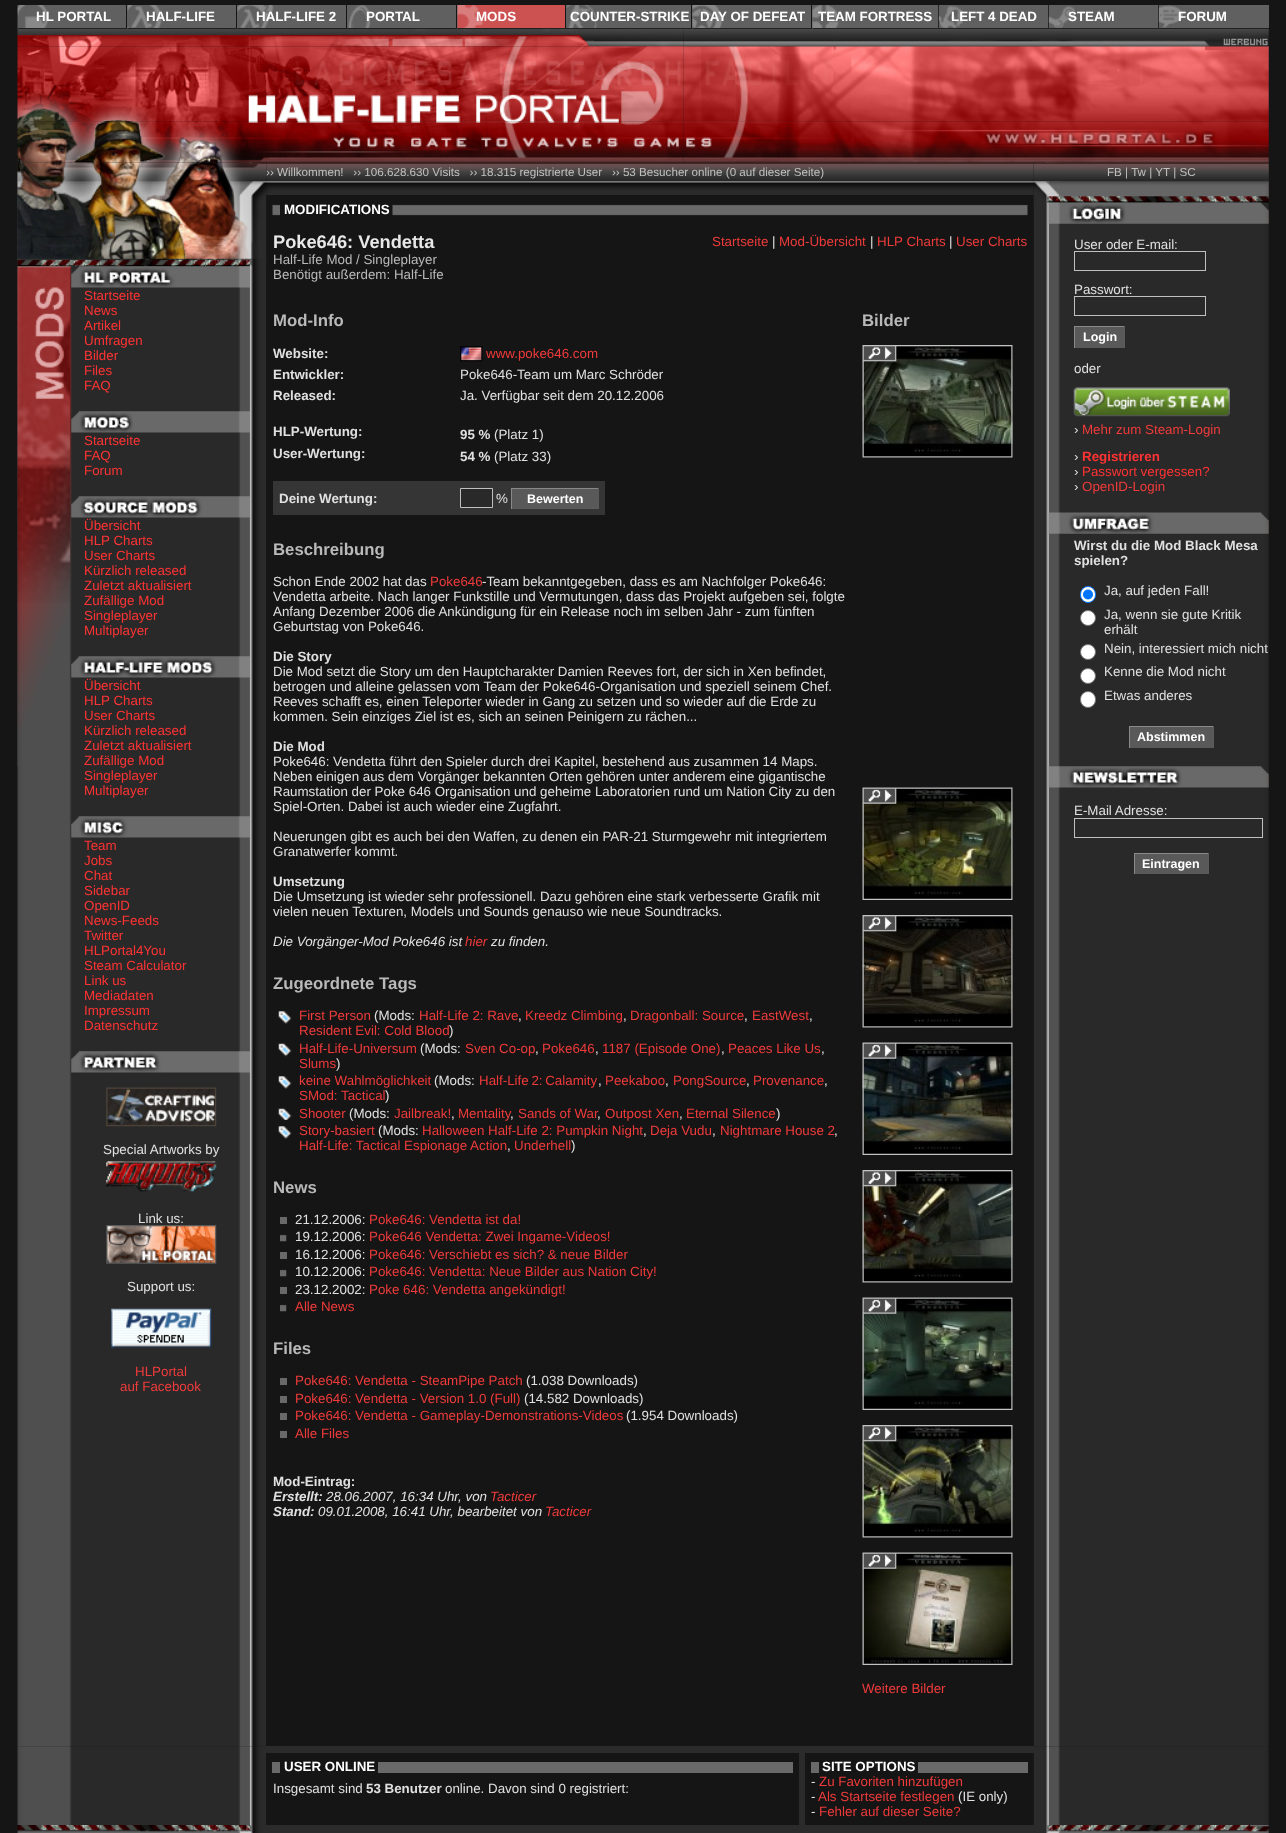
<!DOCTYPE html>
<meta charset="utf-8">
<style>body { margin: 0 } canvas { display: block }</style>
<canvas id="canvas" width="1286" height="1833"></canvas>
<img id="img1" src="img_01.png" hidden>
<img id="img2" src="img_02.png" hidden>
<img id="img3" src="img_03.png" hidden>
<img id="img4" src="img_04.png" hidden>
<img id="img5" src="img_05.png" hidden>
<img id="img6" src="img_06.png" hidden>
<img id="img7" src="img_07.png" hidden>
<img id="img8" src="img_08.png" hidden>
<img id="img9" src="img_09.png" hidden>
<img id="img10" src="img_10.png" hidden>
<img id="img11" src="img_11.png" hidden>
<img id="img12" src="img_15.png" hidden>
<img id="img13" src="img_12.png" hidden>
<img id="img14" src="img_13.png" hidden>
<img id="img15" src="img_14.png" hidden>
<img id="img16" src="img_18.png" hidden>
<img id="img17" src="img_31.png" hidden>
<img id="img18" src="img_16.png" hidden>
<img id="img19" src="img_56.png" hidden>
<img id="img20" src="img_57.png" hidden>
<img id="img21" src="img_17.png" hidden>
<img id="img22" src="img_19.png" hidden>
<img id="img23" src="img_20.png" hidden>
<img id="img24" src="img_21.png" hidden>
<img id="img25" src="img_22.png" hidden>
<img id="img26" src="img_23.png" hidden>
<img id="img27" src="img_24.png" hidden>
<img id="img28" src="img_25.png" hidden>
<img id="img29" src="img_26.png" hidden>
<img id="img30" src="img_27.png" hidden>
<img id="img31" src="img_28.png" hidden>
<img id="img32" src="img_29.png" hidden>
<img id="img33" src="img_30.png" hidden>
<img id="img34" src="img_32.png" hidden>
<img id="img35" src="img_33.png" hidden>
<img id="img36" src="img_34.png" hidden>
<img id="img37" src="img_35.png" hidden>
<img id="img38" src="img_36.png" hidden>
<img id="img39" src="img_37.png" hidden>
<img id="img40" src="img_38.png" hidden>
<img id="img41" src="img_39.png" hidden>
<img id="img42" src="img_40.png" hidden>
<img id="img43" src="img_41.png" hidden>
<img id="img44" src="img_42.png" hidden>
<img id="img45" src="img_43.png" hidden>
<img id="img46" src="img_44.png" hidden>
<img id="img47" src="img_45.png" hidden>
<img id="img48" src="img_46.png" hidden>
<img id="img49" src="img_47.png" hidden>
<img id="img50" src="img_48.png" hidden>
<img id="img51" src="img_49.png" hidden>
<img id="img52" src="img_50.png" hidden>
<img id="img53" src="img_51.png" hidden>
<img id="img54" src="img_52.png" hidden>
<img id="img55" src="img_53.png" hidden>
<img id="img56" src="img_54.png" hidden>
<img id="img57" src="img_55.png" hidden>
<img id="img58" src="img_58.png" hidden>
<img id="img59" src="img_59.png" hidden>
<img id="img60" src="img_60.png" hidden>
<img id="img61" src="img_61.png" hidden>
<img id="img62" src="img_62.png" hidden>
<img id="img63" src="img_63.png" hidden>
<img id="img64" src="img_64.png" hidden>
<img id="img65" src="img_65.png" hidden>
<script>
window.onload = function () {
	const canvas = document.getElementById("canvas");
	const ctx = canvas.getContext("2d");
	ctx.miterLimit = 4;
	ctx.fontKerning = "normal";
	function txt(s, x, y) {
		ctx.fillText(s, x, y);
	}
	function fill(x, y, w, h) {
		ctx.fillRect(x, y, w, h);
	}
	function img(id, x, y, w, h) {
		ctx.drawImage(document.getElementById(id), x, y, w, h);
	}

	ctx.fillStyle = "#151515";
	fill(0, 0, 1286, 1833);
	ctx.fillStyle = "#606060";
	fill(49, 5, 79, 23);
	img("img1", 17, 5, 32, 24);
	ctx.fillStyle = "#151515";
	fill(126, 5, 1, 24);
	fill(18, 28, 31, 1);
	ctx.fillStyle = "#606060";
	fill(162, 5, 76, 23);
	img("img2", 127, 5, 35, 24);
	ctx.fillStyle = "#151515";
	fill(236, 5, 1, 24);
	fill(128, 28, 34, 1);
	ctx.fillStyle = "#606060";
	fill(274, 5, 74, 23);
	img("img3", 237, 5, 37, 24);
	ctx.fillStyle = "#151515";
	fill(346, 5, 1, 24);
	fill(238, 28, 36, 1);
	ctx.fillStyle = "#606060";
	fill(371, 5, 87, 23);
	img("img4", 347, 5, 24, 24);
	ctx.fillStyle = "#151515";
	fill(456, 5, 1, 24);
	fill(348, 28, 23, 1);
	ctx.fillStyle = "#CC5252";
	fill(484, 5, 81, 23);
	img("img5", 457, 5, 27, 24);
	ctx.fillStyle = "#151515";
	fill(458, 28, 26, 1);
	ctx.fillStyle = "#606060";
	fill(566, 5, 127, 23);
	img("img6", 566, 5, 31, 23);
	ctx.fillStyle = "#151515";
	fill(691, 5, 1, 24);
	ctx.fillStyle = "#606060";
	fill(723, 5, 90, 23);
	img("img7", 692, 5, 31, 24);
	ctx.fillStyle = "#151515";
	fill(811, 5, 1, 24);
	fill(693, 28, 30, 1);
	ctx.fillStyle = "#606060";
	fill(839, 5, 99, 23);
	img("img8", 812, 5, 27, 24);
	ctx.fillStyle = "#151515";
	fill(813, 28, 26, 1);
	ctx.fillStyle = "#606060";
	fill(964, 5, 84, 23);
	img("img9", 938, 5, 26, 24);
	ctx.fillStyle = "#151515";
	fill(939, 28, 25, 1);
	ctx.fillStyle = "#606060";
	fill(1075, 5, 83, 23);
	img("img10", 1048, 5, 27, 24);
	ctx.fillStyle = "#151515";
	fill(1049, 28, 26, 1);
	ctx.fillStyle = "#606060";
	fill(1183, 5, 86, 23);
	img("img11", 1158, 5, 25, 24);
	ctx.fillStyle = "#151515";
	fill(1159, 28, 24, 1);
	img("img12", 683, 46, 586, 76);
	img("img13", 17, 28, 667, 19);
	img("img14", 683, 28, 586, 19);
	img("img15", 17, 46, 667, 76);
	img("img16", 17, 162, 250, 1585);
	fill(266, 163, 1, 1583);
	img("img17", 266, 162, 768, 19);
	img("img18", 17, 121, 667, 42);
	img("img19", 1033, 162, 236, 1585);
	img("img20", 1033, 162, 236, 20);
	img("img21", 683, 121, 586, 42);
	img("img22", 17, 162, 250, 105);
	img("img23", 17, 266, 55, 500);
	img("img24", 71, 266, 179, 22);
	img("img25", 71, 411, 179, 22);
	img("img26", 71, 496, 179, 22);
	img("img27", 71, 656, 179, 22);
	img("img28", 71, 816, 179, 22);
	img("img29", 71, 1051, 179, 22);
	img("img30", 106, 1087, 111, 40);
	img("img31", 106, 1161, 111, 31);
	img("img32", 106, 1225, 111, 39);
	img("img33", 111, 1308, 101, 40);
	img("img34", 266, 181, 768, 14);
	img("img35", 272, 204, 8, 12);
	img("img36", 392, 204, 636, 12);
	img("img37", 460, 346, 23, 16);
	ctx.fillStyle = "#353535";
	fill(273, 481, 332, 34);
	ctx.fillStyle = "#292929";
	ctx.beginPath();
	ctx.rect(460.5, 488.5, 32, 19);
	ctx.fill();
	ctx.strokeStyle = "#C0C0C0";
	ctx.stroke();
	ctx.fillStyle = "#595959";
	fill(512, 489, 86, 19);
	ctx.fillStyle = "#898989";
	fill(511, 488, 88, 1);
	ctx.fillStyle = "#5B5B5B";
	fill(598, 488, 1, 21);
	fill(511, 508, 88, 1);
	ctx.fillStyle = "#898989";
	fill(511, 488, 1, 21);
	img("img38", 278, 1011, 14, 13);
	img("img39", 278, 1043, 14, 14);
	img("img38", 278, 1076, 14, 13);
	img("img40", 278, 1108, 14, 12);
	img("img38", 278, 1126, 14, 13);
	ctx.fillStyle = "#696969";
	fill(280, 1217, 7, 7);
	img("img41", 280, 1234, 7, 8);
	fill(280, 1252, 7, 7);
	img("img41", 280, 1269, 7, 8);
	fill(280, 1287, 7, 7);
	img("img41", 280, 1304, 7, 8);
	fill(280, 1378, 7, 7);
	fill(280, 1396, 7, 7);
	fill(280, 1413, 7, 7);
	fill(280, 1431, 7, 7);
	img("img42", 862, 345, 151, 113);
	img("img43", 862, 345, 151, 113);
	img("img44", 862, 787, 151, 113);
	img("img45", 862, 787, 151, 113);
	img("img46", 862, 915, 151, 113);
	img("img47", 862, 915, 151, 113);
	img("img48", 862, 1042, 151, 113);
	img("img49", 862, 1042, 151, 113);
	img("img50", 862, 1170, 151, 113);
	img("img51", 862, 1170, 151, 113);
	img("img52", 862, 1297, 151, 113);
	img("img53", 862, 1297, 151, 113);
	img("img54", 862, 1425, 151, 113);
	img("img55", 862, 1425, 151, 113);
	img("img56", 862, 1552, 151, 113);
	img("img57", 862, 1552, 151, 113);
	img("img58", 1033, 181, 236, 22);
	img("img59", 1048, 202, 221, 22);
	ctx.strokeRect(1074.5, 251.5, 131, 19);
	ctx.strokeRect(1074.5, 296.5, 131, 19);
	ctx.fillStyle = "#595959";
	fill(1075, 327, 49, 21);
	ctx.fillStyle = "#898989";
	fill(1074, 326, 51, 1);
	ctx.fillStyle = "#5B5B5B";
	fill(1124, 326, 1, 22);
	fill(1074, 346, 1, 1);
	ctx.fillStyle = "#898989";
	fill(1074, 326, 1, 22);
	img("img60", 1073, 387, 157, 30);
	img("img61", 1048, 512, 221, 22);
	ctx.fillStyle = "#FFFFFF";
	ctx.beginPath();
	ctx.roundRect(1080.5, 586.5, 15, 16, 7.5);
	ctx.fill();
	ctx.strokeStyle = "#0075FF";
	ctx.stroke();
	ctx.fillStyle = "#0075FF";
	ctx.beginPath();
	ctx.arc(1088, 594.5, 5, 0, Math.PI * 2);
	ctx.fill();
	ctx.fillStyle = "#FFFFFF";
	ctx.beginPath();
	ctx.arc(1088, 618, 7.5, 0, Math.PI * 2);
	ctx.fill();
	ctx.strokeStyle = "#767676";
	ctx.stroke();
	ctx.beginPath();
	ctx.arc(1088, 652, 7.5, 0, Math.PI * 2);
	ctx.fill();
	ctx.stroke();
	ctx.beginPath();
	ctx.arc(1088, 676, 7.5, 0, Math.PI * 2);
	ctx.fill();
	ctx.stroke();
	ctx.beginPath();
	ctx.roundRect(1080.5, 691.5, 15, 16, 7.5);
	ctx.fill();
	ctx.stroke();
	ctx.fillStyle = "#595959";
	fill(1130, 727, 83, 21);
	ctx.fillStyle = "#898989";
	fill(1129, 726, 85, 1);
	ctx.fillStyle = "#5B5B5B";
	fill(1213, 726, 1, 22);
	fill(1129, 746, 1, 1);
	ctx.fillStyle = "#898989";
	fill(1129, 726, 1, 22);
	img("img62", 1048, 766, 221, 22);
	ctx.strokeStyle = "#C0C0C0";
	ctx.strokeRect(1074.5, 818.5, 188, 19);
	ctx.fillStyle = "#595959";
	fill(1135, 854, 73, 19);
	ctx.fillStyle = "#898989";
	fill(1134, 853, 75, 1);
	ctx.fillStyle = "#5B5B5B";
	fill(1208, 853, 1, 21);
	fill(1134, 873, 75, 1);
	ctx.fillStyle = "#898989";
	fill(1134, 853, 1, 21);
	img("img63", 17, 1746, 249, 79);
	ctx.fillStyle = "#2B2B2B";
	fill(266, 1746, 768, 7);
	ctx.fillStyle = "#696969";
	fill(272, 1762, 8, 11);
	fill(378, 1762, 415, 11);
	ctx.fillStyle = "#2B2B2B";
	fill(799, 1753, 6, 72);
	ctx.fillStyle = "#696969";
	fill(811, 1762, 8, 11);
	fill(918, 1762, 110, 11);
	img("img64", 1033, 1746, 236, 79);
	img("img65", 17, 1825, 1252, 8);
	ctx.font = "bold 13.35px Liberation Sans";
	ctx.fillStyle = "#FFFFFF";
	txt("HL PORTAL", 36, 21);
	txt("HALF-LIFE", 146, 21);
	txt("HALF-LIFE 2", 256, 21);
	txt("PORTAL", 366, 21);
	txt("MODS", 476, 21);
	txt("COUNTER-STRIKE", 570, 21);
	txt("DAY OF DEFEAT", 700, 21);
	txt("TEAM FORTRESS", 818, 21);
	txt("LEFT 4 DEAD", 951, 21);
	txt("STEAM", 1068, 21);
	txt("FORUM", 1178, 21);
	ctx.font = "13.35px Liberation Sans";
	ctx.fillStyle = "#FF3333";
	txt("Startseite", 84, 300);
	txt("News", 84, 315);
	txt("Artikel", 84, 330);
	txt("Umfragen", 84, 345);
	txt("Bilder", 84, 360);
	txt("Files", 84, 375);
	txt("FAQ", 84, 390);
	txt("Startseite", 84, 445);
	txt("FAQ", 84, 460);
	txt("Forum", 84, 475);
	txt("Übersicht", 84, 530);
	txt("HLP Charts", 84, 545);
	txt("User Charts", 84, 560);
	txt("Kürzlich released", 84, 575);
	txt("Zuletzt aktualisiert", 84, 590);
	txt("Zufällige Mod", 84, 605);
	txt("Singleplayer", 84, 620);
	txt("Multiplayer", 84, 635);
	txt("Übersicht", 84, 690);
	txt("HLP Charts", 84, 705);
	txt("User Charts", 84, 720);
	txt("Kürzlich released", 84, 735);
	txt("Zuletzt aktualisiert", 84, 750);
	txt("Zufällige Mod", 84, 765);
	txt("Singleplayer", 84, 780);
	txt("Multiplayer", 84, 795);
	txt("Team", 84, 850);
	txt("Jobs", 84, 865);
	txt("Chat", 84, 880);
	txt("Sidebar", 84, 895);
	txt("OpenID", 84, 910);
	txt("News-Feeds", 84, 925);
	txt("Twitter", 84, 940);
	txt("HLPortal4You", 84, 955);
	txt("Steam Calculator", 84, 970);
	txt("Link us", 84, 985);
	txt("Mediadaten", 84, 1000);
	txt("Impressum", 84, 1015);
	txt("Datenschutz", 84, 1030);
	ctx.fillStyle = "#E0E0E0";
	txt("Special Artworks by", 103, 1154);
	txt("Link us:", 138, 1223);
	txt("Support us:", 127, 1291);
	ctx.fillStyle = "#EF3B3B";
	txt("HLPortal", 135, 1376);
	txt("auf Facebook", 120, 1391);
	ctx.font = "11.65px Liberation Sans";
	ctx.fillStyle = "#C0C0C0";
	txt("›› Willkommen!   ›› 106.628.630 Visits   ›› 18.315 registrierte User   ›› 53 Besucher online (0 auf dieser Seite)", 266, 176);
	ctx.font = "bold 13.35px Liberation Sans";
	ctx.fillStyle = "#FFFFFF";
	txt("MODIFICATIONS", 284, 214);
	ctx.font = "bold 18.25px Liberation Sans";
	ctx.fillStyle = "#E8E8E8";
	txt("Poke646: Vendetta", 273, 248);
	ctx.font = "13.35px Liberation Sans";
	ctx.fillStyle = "#EF3B3B";
	txt("Startseite", 712, 246);
	ctx.fillStyle = "#E0E0E0";
	txt("|", 772, 246);
	ctx.fillStyle = "#EF3B3B";
	txt("Mod-Übersicht", 779, 246);
	ctx.fillStyle = "#E0E0E0";
	txt("|", 870, 246);
	ctx.fillStyle = "#EF3B3B";
	txt("HLP Charts", 877, 246);
	ctx.fillStyle = "#E0E0E0";
	txt("|", 949, 246);
	ctx.fillStyle = "#EF3B3B";
	txt("User Charts", 956, 246);
	ctx.fillStyle = "#B9B9B9";
	txt("Half-Life Mod / Singleplayer", 273, 264);
	txt("Benötigt außerdem: Half-Life", 273, 279);
	ctx.font = "bold 16.75px Liberation Sans";
	txt("Mod-Info", 273, 326);
	ctx.font = "bold 13.35px Liberation Sans";
	ctx.fillStyle = "#E0E0E0";
	txt("Website:", 273, 358);
	ctx.font = "13.35px Liberation Sans";
	ctx.fillStyle = "#EF3B3B";
	txt("www.poke646.com", 486, 358);
	ctx.font = "bold 13.35px Liberation Sans";
	ctx.fillStyle = "#E0E0E0";
	txt("Entwickler:", 273, 379);
	ctx.font = "13.35px Liberation Sans";
	txt("Poke646-Team um Marc Schröder", 460, 379);
	ctx.font = "bold 13.35px Liberation Sans";
	txt("Released:", 273, 400);
	ctx.font = "13.35px Liberation Sans";
	txt("Ja. Verfügbar seit dem 20.12.2006", 460, 400);
	ctx.font = "bold 13.35px Liberation Sans";
	txt("HLP-Wertung:", 273, 436);
	txt("95 %", 460, 439);
	ctx.font = "13.35px Liberation Sans";
	txt("(Platz 1)", 494, 439);
	ctx.font = "bold 13.35px Liberation Sans";
	txt("User-Wertung:", 273, 458);
	txt("54 %", 460, 461);
	ctx.font = "13.35px Liberation Sans";
	txt("(Platz 33)", 494, 461);
	ctx.font = "bold 13.35px Liberation Sans";
	txt("Deine Wertung:", 279, 503);
	ctx.font = "13.35px Liberation Sans";
	txt("%", 496, 503);
	ctx.font = "bold 12.5px Liberation Sans";
	ctx.fillStyle = "#FFFFFF";
	txt("Bewerten", 527, 503);
	ctx.font = "bold 16.75px Liberation Sans";
	ctx.fillStyle = "#B9B9B9";
	txt("Beschreibung", 273, 555);
	ctx.font = "13.35px Liberation Sans";
	ctx.fillStyle = "#E0E0E0";
	txt("Schon Ende 2002 hat das", 273, 586);
	ctx.fillStyle = "#EF3B3B";
	txt("Poke646", 430, 586);
	ctx.fillStyle = "#E0E0E0";
	txt("-Team bekanntgegeben, dass es am Nachfolger Poke646:", 482, 586);
	txt("Vendetta arbeite. Nach langer Funkstille und Vermutungen, dass das Projekt aufgeben sei, folgte", 273, 601);
	txt("Anfang Dezember 2006 die Ankündigung für ein Release noch im selben Jahr - zum fünften", 273, 616);
	txt("Geburtstag von Poke646.", 273, 631);
	ctx.font = "bold 13.35px Liberation Sans";
	txt("Die Story", 273, 661);
	ctx.font = "13.35px Liberation Sans";
	txt("Die Mod setzt die Story um den Hauptcharakter Damien Reeves fort, der sich in Xen befindet,", 273, 676);
	txt("betrogen und alleine gelassen vom Team der Poke646-Organisation und speziell seinem Chef.", 273, 691);
	txt("Reeves schafft es, einen Teleporter wieder in Gang zu setzen und so wieder auf die Erde zu", 273, 706);
	txt("kommen. Sein einziges Ziel ist es, sich an seinen Peinigern zu rächen...", 273, 721);
	ctx.font = "bold 13.35px Liberation Sans";
	txt("Die Mod", 273, 751);
	ctx.font = "13.35px Liberation Sans";
	txt("Poke646: Vendetta führt den Spieler durch drei Kapitel, bestehend aus zusammen 14 Maps.", 273, 766);
	txt("Neben einigen aus dem Vorgänger bekannten Orten gehören unter anderem eine gigantische", 273, 781);
	txt("Raumstation der Poke 646 Organisation und geheime Laboratorien rund um Nation City zu den", 273, 796);
	txt("Spiel-Orten. Dabei ist auch wieder eine Zugfahrt.", 273, 811);
	txt("Neuerungen gibt es auch bei den Waffen, zu denen ein PAR-21 Sturmgewehr mit integriertem", 273, 841);
	txt("Granatwerfer kommt.", 273, 856);
	ctx.font = "bold 13.35px Liberation Sans";
	txt("Umsetzung", 273, 886);
	ctx.font = "13.35px Liberation Sans";
	txt("Die Umsetzung ist wieder sehr professionell. Dazu gehören eine stark verbesserte Grafik mit", 273, 901);
	txt("vielen neuen Texturen, Models und Sounds genauso wie neue Soundtracks.", 273, 916);
	ctx.font = "italic 13.35px Liberation Sans";
	txt("Die Vorgänger-Mod Poke646 ist", 273, 946);
	ctx.fillStyle = "#EF3B3B";
	txt("hier", 465, 946);
	ctx.fillStyle = "#E0E0E0";
	txt("zu finden.", 491, 946);
	ctx.font = "bold 16.75px Liberation Sans";
	ctx.fillStyle = "#B9B9B9";
	txt("Zugeordnete Tags", 273, 989);
	ctx.font = "13.35px Liberation Sans";
	ctx.fillStyle = "#EF3B3B";
	txt("First Person", 299, 1020);
	ctx.fillStyle = "#E0E0E0";
	txt("(Mods:", 374, 1020);
	ctx.fillStyle = "#EF3B3B";
	txt("Half-Life 2: Rave", 419, 1020);
	ctx.fillStyle = "#E0E0E0";
	txt(",", 518, 1020);
	ctx.fillStyle = "#EF3B3B";
	txt("Kreedz Climbing", 525, 1020);
	ctx.fillStyle = "#E0E0E0";
	txt(",", 623, 1020);
	ctx.fillStyle = "#EF3B3B";
	txt("Dragonball: Source", 630, 1020);
	ctx.fillStyle = "#E0E0E0";
	txt(",", 744, 1020);
	ctx.fillStyle = "#EF3B3B";
	txt("EastWest", 752, 1020);
	ctx.fillStyle = "#E0E0E0";
	txt(",", 809, 1020);
	ctx.fillStyle = "#EF3B3B";
	txt("Resident Evil: Cold Blood", 299, 1035);
	ctx.fillStyle = "#E0E0E0";
	txt(")", 449, 1035);
	ctx.fillStyle = "#EF3B3B";
	txt("Half-Life-Universum", 299, 1053);
	ctx.fillStyle = "#E0E0E0";
	txt("(Mods:", 420, 1053);
	ctx.fillStyle = "#EF3B3B";
	txt("Sven Co-op", 465, 1053);
	ctx.fillStyle = "#E0E0E0";
	txt(",", 535, 1053);
	ctx.fillStyle = "#EF3B3B";
	txt("Poke646", 542, 1053);
	ctx.fillStyle = "#E0E0E0";
	txt(",", 595, 1053);
	ctx.fillStyle = "#EF3B3B";
	txt("1187 (Episode One)", 602, 1053);
	ctx.fillStyle = "#E0E0E0";
	txt(",", 721, 1053);
	ctx.fillStyle = "#EF3B3B";
	txt("Peaces Like Us", 728, 1053);
	ctx.fillStyle = "#E0E0E0";
	txt(",", 821, 1053);
	ctx.fillStyle = "#EF3B3B";
	txt("Slums", 299, 1068);
	ctx.fillStyle = "#E0E0E0";
	txt(")", 336, 1068);
	ctx.fillStyle = "#EF3B3B";
	txt("keine Wahlmöglichkeit", 299, 1085);
	ctx.fillStyle = "#E0E0E0";
	txt("(Mods:", 434, 1085);
	ctx.wordSpacing = "-1px";
	ctx.fillStyle = "#EF3B3B";
	txt("Half-Life 2: Calamity", 479, 1085);
	ctx.wordSpacing = "0px";
	ctx.fillStyle = "#E0E0E0";
	txt(",", 598, 1085);
	ctx.fillStyle = "#EF3B3B";
	txt("Peekaboo", 605, 1085);
	ctx.fillStyle = "#E0E0E0";
	txt(",", 665, 1085);
	ctx.fillStyle = "#EF3B3B";
	txt("PongSource", 673, 1085);
	ctx.fillStyle = "#E0E0E0";
	txt(",", 746, 1085);
	ctx.fillStyle = "#EF3B3B";
	txt("Provenance", 753, 1085);
	ctx.fillStyle = "#E0E0E0";
	txt(",", 824, 1085);
	ctx.fillStyle = "#EF3B3B";
	txt("SMod: Tactical", 299, 1100);
	ctx.fillStyle = "#E0E0E0";
	txt(")", 385, 1100);
	ctx.fillStyle = "#EF3B3B";
	txt("Shooter", 299, 1118);
	ctx.fillStyle = "#E0E0E0";
	txt("(Mods:", 349, 1118);
	ctx.fillStyle = "#EF3B3B";
	txt("Jailbreak!", 394, 1118);
	ctx.fillStyle = "#E0E0E0";
	txt(",", 451, 1118);
	ctx.fillStyle = "#EF3B3B";
	txt("Mentality", 458, 1118);
	txt("Sands of War", 518, 1118);
	txt("Outpost Xen", 605, 1118);
	txt("Eternal Silence", 686, 1118);
	ctx.fillStyle = "#E0E0E0";
	txt(")", 776, 1118);
	txt(",", 510, 1118);
	txt(",", 597, 1118);
	txt(",", 679, 1118);
	ctx.fillStyle = "#EF3B3B";
	txt("Story-basiert", 299, 1135);
	ctx.fillStyle = "#E0E0E0";
	txt("(Mods:", 378, 1135);
	ctx.fillStyle = "#EF3B3B";
	txt("Halloween Half-Life 2: Pumpkin Night", 422, 1135);
	ctx.fillStyle = "#E0E0E0";
	txt(",", 643, 1135);
	ctx.fillStyle = "#EF3B3B";
	txt("Deja Vudu", 650, 1135);
	ctx.fillStyle = "#E0E0E0";
	txt(",", 712, 1135);
	ctx.fillStyle = "#EF3B3B";
	txt("Nightmare House 2", 720, 1135);
	ctx.fillStyle = "#E0E0E0";
	txt(",", 834, 1135);
	ctx.fillStyle = "#EF3B3B";
	txt("Half-Life: Tactical Espionage Action", 299, 1150);
	ctx.fillStyle = "#E0E0E0";
	txt(",", 507, 1150);
	ctx.fillStyle = "#EF3B3B";
	txt("Underhell", 514, 1150);
	ctx.fillStyle = "#E0E0E0";
	txt(")", 571, 1150);
	ctx.font = "bold 16.75px Liberation Sans";
	ctx.fillStyle = "#B9B9B9";
	txt("News", 273, 1193);
	ctx.font = "13.35px Liberation Sans";
	ctx.fillStyle = "#E0E0E0";
	txt("21.12.2006:", 295, 1224);
	ctx.fillStyle = "#EF3B3B";
	txt("Poke646: Vendetta ist da!", 369, 1224);
	ctx.fillStyle = "#E0E0E0";
	txt("19.12.2006:", 295, 1241);
	ctx.fillStyle = "#EF3B3B";
	txt("Poke646 Vendetta: Zwei Ingame-Videos!", 369, 1241);
	ctx.fillStyle = "#E0E0E0";
	txt("16.12.2006:", 295, 1259);
	ctx.fillStyle = "#EF3B3B";
	txt("Poke646: Verschiebt es sich? & neue Bilder", 369, 1259);
	ctx.fillStyle = "#E0E0E0";
	txt("10.12.2006:", 295, 1276);
	ctx.fillStyle = "#EF3B3B";
	txt("Poke646: Vendetta: Neue Bilder aus Nation City!", 369, 1276);
	ctx.fillStyle = "#E0E0E0";
	txt("23.12.2002:", 295, 1294);
	ctx.fillStyle = "#EF3B3B";
	txt("Poke 646: Vendetta angekündigt!", 369, 1294);
	txt("Alle News", 295, 1311);
	ctx.font = "bold 16.75px Liberation Sans";
	ctx.fillStyle = "#B9B9B9";
	txt("Files", 273, 1354);
	ctx.font = "13.35px Liberation Sans";
	ctx.fillStyle = "#EF3B3B";
	txt("Poke646: Vendetta - SteamPipe Patch", 295, 1385);
	ctx.fillStyle = "#E0E0E0";
	txt("(1.038 Downloads)", 526, 1385);
	ctx.fillStyle = "#EF3B3B";
	txt("Poke646: Vendetta - Version 1.0 (Full)", 295, 1403);
	ctx.fillStyle = "#E0E0E0";
	txt("(14.582 Downloads)", 524, 1403);
	ctx.fillStyle = "#EF3B3B";
	txt("Poke646: Vendetta - Gameplay-Demonstrations-Videos", 295, 1420);
	ctx.fillStyle = "#E0E0E0";
	txt("(1.954 Downloads)", 626, 1420);
	ctx.fillStyle = "#EF3B3B";
	txt("Alle Files", 295, 1438);
	ctx.font = "bold 13.35px Liberation Sans";
	ctx.fillStyle = "#E0E0E0";
	txt("Mod-Eintrag:", 273, 1486);
	ctx.font = "italic bold 13.35px Liberation Sans";
	txt("Erstellt:", 273, 1501);
	ctx.font = "italic 13.35px Liberation Sans";
	txt("28.06.2007, 16:34 Uhr, von", 326, 1501);
	ctx.fillStyle = "#EF3B3B";
	txt("Tacticer", 490, 1501);
	ctx.font = "italic bold 13.35px Liberation Sans";
	ctx.fillStyle = "#E0E0E0";
	txt("Stand:", 273, 1516);
	ctx.font = "italic 13.35px Liberation Sans";
	txt("09.01.2008, 16:41 Uhr, bearbeitet von", 318, 1516);
	ctx.fillStyle = "#EF3B3B";
	txt("Tacticer", 545, 1516);
	ctx.font = "bold 16.75px Liberation Sans";
	ctx.fillStyle = "#B9B9B9";
	txt("Bilder", 862, 326);
	ctx.font = "13.35px Liberation Sans";
	ctx.fillStyle = "#EF3B3B";
	txt("Weitere Bilder", 862, 1693);
	ctx.font = "11.65px Liberation Sans";
	ctx.fillStyle = "#C0C0C0";
	txt("FB | Tw | YT | SC", 1107, 176);
	ctx.font = "13.35px Liberation Sans";
	ctx.fillStyle = "#E0E0E0";
	txt("User oder E-mail:", 1074, 249);
	txt("Passwort:", 1074, 294);
	ctx.font = "bold 12.5px Liberation Sans";
	ctx.fillStyle = "#FFFFFF";
	txt("Login", 1083, 341);
	ctx.font = "13.35px Liberation Sans";
	ctx.fillStyle = "#E0E0E0";
	txt("oder", 1074, 373);
	txt("›", 1074, 434);
	ctx.fillStyle = "#EF3B3B";
	txt("Mehr zum Steam-Login", 1082, 434);
	ctx.fillStyle = "#E0E0E0";
	txt("›", 1074, 461);
	ctx.font = "bold 13.35px Liberation Sans";
	ctx.fillStyle = "#FF3333";
	txt("Registrieren", 1082, 461);
	ctx.font = "13.35px Liberation Sans";
	ctx.fillStyle = "#E0E0E0";
	txt("›", 1074, 476);
	ctx.fillStyle = "#FF3333";
	txt("Passwort vergessen?", 1082, 476);
	ctx.fillStyle = "#E0E0E0";
	txt("›", 1074, 491);
	ctx.fillStyle = "#EF3B3B";
	txt("OpenID-Login", 1082, 491);
	ctx.font = "bold 13.35px Liberation Sans";
	ctx.fillStyle = "#E0E0E0";
	txt("Wirst du die Mod Black Mesa", 1074, 550);
	txt("spielen?", 1074, 565);
	ctx.font = "13.35px Liberation Sans";
	txt("Ja, auf jeden Fall!", 1104, 595);
	txt("Ja, wenn sie gute Kritik", 1104, 619);
	txt("erhält", 1104, 634);
	txt("Nein, interessiert mich nicht", 1104, 653);
	txt("Kenne die Mod nicht", 1104, 676);
	txt("Etwas anderes", 1104, 700);
	ctx.font = "bold 12.5px Liberation Sans";
	ctx.fillStyle = "#FFFFFF";
	txt("Abstimmen", 1137, 741);
	ctx.font = "13.35px Liberation Sans";
	ctx.fillStyle = "#E0E0E0";
	txt("E-Mail Adresse:", 1074, 815);
	ctx.font = "bold 12.5px Liberation Sans";
	ctx.fillStyle = "#FFFFFF";
	txt("Eintragen", 1142, 868);
	ctx.font = "bold 13.35px Liberation Sans";
	txt("USER ONLINE", 284, 1771);
	ctx.font = "13.35px Liberation Sans";
	ctx.fillStyle = "#E0E0E0";
	txt("Insgesamt sind", 273, 1793);
	ctx.font = "bold 13.35px Liberation Sans";
	txt("53 Benutzer", 366, 1793);
	ctx.font = "13.35px Liberation Sans";
	txt("online. Davon sind 0 registriert:", 445, 1793);
	ctx.font = "bold 13.35px Liberation Sans";
	ctx.fillStyle = "#FFFFFF";
	txt("SITE OPTIONS", 822, 1771);
	ctx.font = "13.35px Liberation Sans";
	ctx.fillStyle = "#E0E0E0";
	txt("-", 811, 1786);
	ctx.fillStyle = "#EF3B3B";
	txt("Zu Favoriten hinzufügen", 819, 1786);
	ctx.fillStyle = "#E0E0E0";
	txt("-", 811, 1801);
	ctx.fillStyle = "#EF3B3B";
	txt("Als Startseite festlegen", 818, 1801);
	ctx.fillStyle = "#E0E0E0";
	txt("(IE only)", 958, 1801);
	txt("-", 811, 1816);
	ctx.fillStyle = "#EF3B3B";
	txt("Fehler auf dieser Seite?", 819, 1816);
};
</script>
